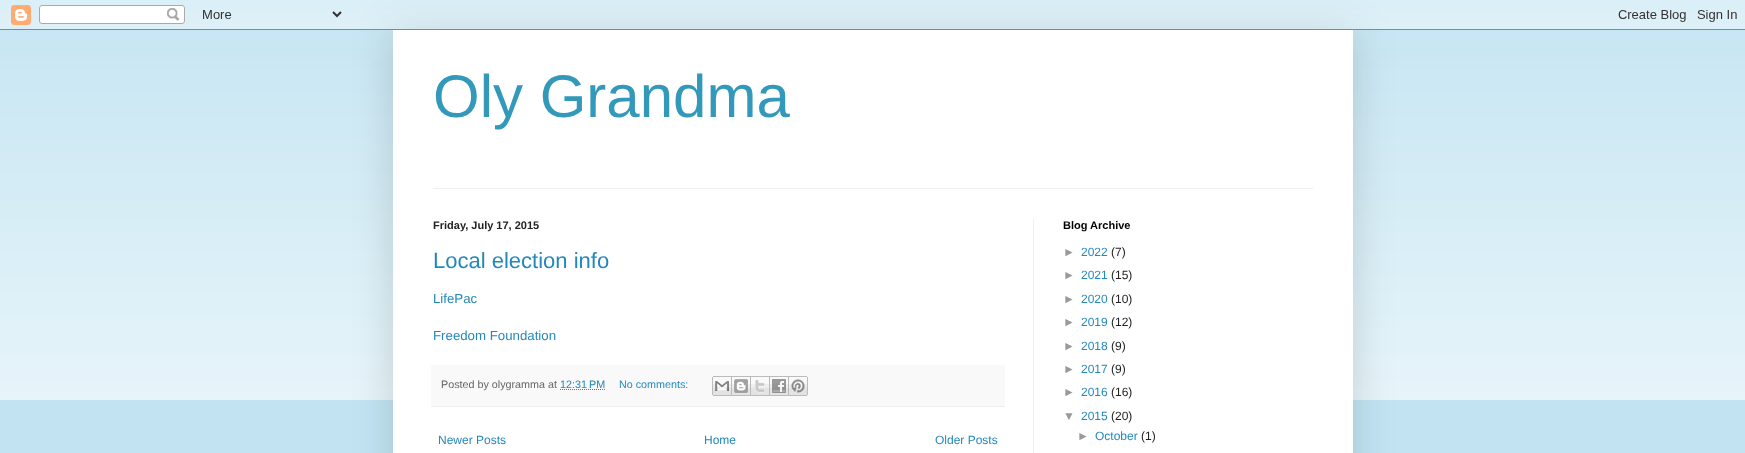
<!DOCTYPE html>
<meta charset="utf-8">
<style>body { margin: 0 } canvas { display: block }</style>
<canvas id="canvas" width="1745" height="453"></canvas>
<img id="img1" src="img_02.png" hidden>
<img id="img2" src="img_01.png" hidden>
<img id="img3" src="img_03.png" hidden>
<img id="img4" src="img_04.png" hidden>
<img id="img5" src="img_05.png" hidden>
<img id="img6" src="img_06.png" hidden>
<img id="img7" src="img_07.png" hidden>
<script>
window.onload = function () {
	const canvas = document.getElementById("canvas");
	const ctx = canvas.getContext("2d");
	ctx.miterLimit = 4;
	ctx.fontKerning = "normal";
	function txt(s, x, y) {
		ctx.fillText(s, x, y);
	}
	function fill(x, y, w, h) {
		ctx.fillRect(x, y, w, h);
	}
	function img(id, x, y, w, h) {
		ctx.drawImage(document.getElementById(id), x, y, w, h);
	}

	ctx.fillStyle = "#C2E4F2";
	fill(0, 0, 1745, 453);
	img("img1", 0, 10, 1745, 390);
	ctx.fillStyle = "rgba(0, 0, 0, 0.15)";
	ctx.filter = "blur(20px)";
	ctx.beginPath();
	ctx.rect(393, 30, 960, 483);
	ctx.fill();
	ctx.filter = "none";
	img("img2", 0, 0, 1745, 30);
	ctx.fillStyle = "#FFFFFF";
	fill(393, 30, 960, 423);
	ctx.fillStyle = "#EEEEEE";
	fill(433, 188, 880, 1);
	fill(1033, 219, 1, 234);
	ctx.fillStyle = "#F9F9F9";
	fill(431, 365, 574, 41);
	ctx.fillStyle = "#EEEEEE";
	fill(431, 406, 574, 1);
	ctx.beginPath();
	ctx.moveTo(560, 389.5);
	ctx.lineTo(605.5, 389.5);
	ctx.strokeStyle = "#2288BB";
	ctx.setLineDash([1, 1]);
	ctx.stroke();
	img("img3", 712, 376, 20, 20);
	img("img4", 732, 376, 19, 20);
	img("img5", 751, 376, 19, 20);
	img("img6", 770, 376, 19, 20);
	img("img7", 789, 376, 19, 20);
	ctx.font = "60px Liberation Sans";
	ctx.fillStyle = "#3399BB";
	txt("Oly Grandma", 433, 117);
	ctx.font = "bold 11px Liberation Sans";
	ctx.fillStyle = "#222222";
	txt("Friday, July 17, 2015", 433, 229);
	ctx.font = "22px Liberation Sans";
	ctx.fillStyle = "#2288BB";
	txt("Local election info", 433, 268);
	ctx.font = "13.25px Liberation Sans";
	txt("LifePac", 433, 303);
	txt("Freedom Foundation", 433, 340);
	ctx.font = "10.75px Liberation Sans";
	ctx.fillStyle = "#666666";
	txt("Posted by olygramma at", 441, 388);
	ctx.fillStyle = "#2288BB";
	txt("12:31 PM", 560, 388);
	txt("No comments:", 619, 388);
	ctx.font = "12px Liberation Sans";
	txt("Newer Posts", 438, 444);
	txt("Home", 704, 444);
	txt("Older Posts", 935, 444);
	ctx.font = "bold 11px Liberation Sans";
	ctx.fillStyle = "#000000";
	txt("Blog Archive", 1063, 229);
	ctx.font = "12px Liberation Sans";
	ctx.fillStyle = "#999999";
	txt("►", 1063, 256);
	ctx.fillStyle = "#2288BB";
	txt("2022", 1081, 256);
	ctx.fillStyle = "#222222";
	txt("(7)", 1111, 256);
	ctx.fillStyle = "#999999";
	txt("►", 1063, 279);
	ctx.fillStyle = "#2288BB";
	txt("2021", 1081, 279);
	ctx.fillStyle = "#222222";
	txt("(15)", 1111, 279);
	ctx.fillStyle = "#999999";
	txt("►", 1063, 303);
	ctx.fillStyle = "#2288BB";
	txt("2020", 1081, 303);
	ctx.fillStyle = "#222222";
	txt("(10)", 1111, 303);
	ctx.fillStyle = "#999999";
	txt("►", 1063, 326);
	ctx.fillStyle = "#2288BB";
	txt("2019", 1081, 326);
	ctx.fillStyle = "#222222";
	txt("(12)", 1111, 326);
	ctx.fillStyle = "#999999";
	txt("►", 1063, 350);
	ctx.fillStyle = "#2288BB";
	txt("2018", 1081, 350);
	ctx.fillStyle = "#222222";
	txt("(9)", 1111, 350);
	ctx.fillStyle = "#999999";
	txt("►", 1063, 373);
	ctx.fillStyle = "#2288BB";
	txt("2017", 1081, 373);
	ctx.fillStyle = "#222222";
	txt("(9)", 1111, 373);
	ctx.fillStyle = "#999999";
	txt("►", 1063, 396);
	ctx.fillStyle = "#2288BB";
	txt("2016", 1081, 396);
	ctx.fillStyle = "#222222";
	txt("(16)", 1111, 396);
	ctx.fillStyle = "#999999";
	txt("▼", 1063, 420);
	ctx.fillStyle = "#2288BB";
	txt("2015", 1081, 420);
	ctx.fillStyle = "#222222";
	txt("(20)", 1111, 420);
	ctx.fillStyle = "#999999";
	txt("►", 1077, 440);
	ctx.fillStyle = "#2288BB";
	txt("October", 1095, 440);
	ctx.fillStyle = "#222222";
	txt("(1)", 1141, 440);
};
</script>
